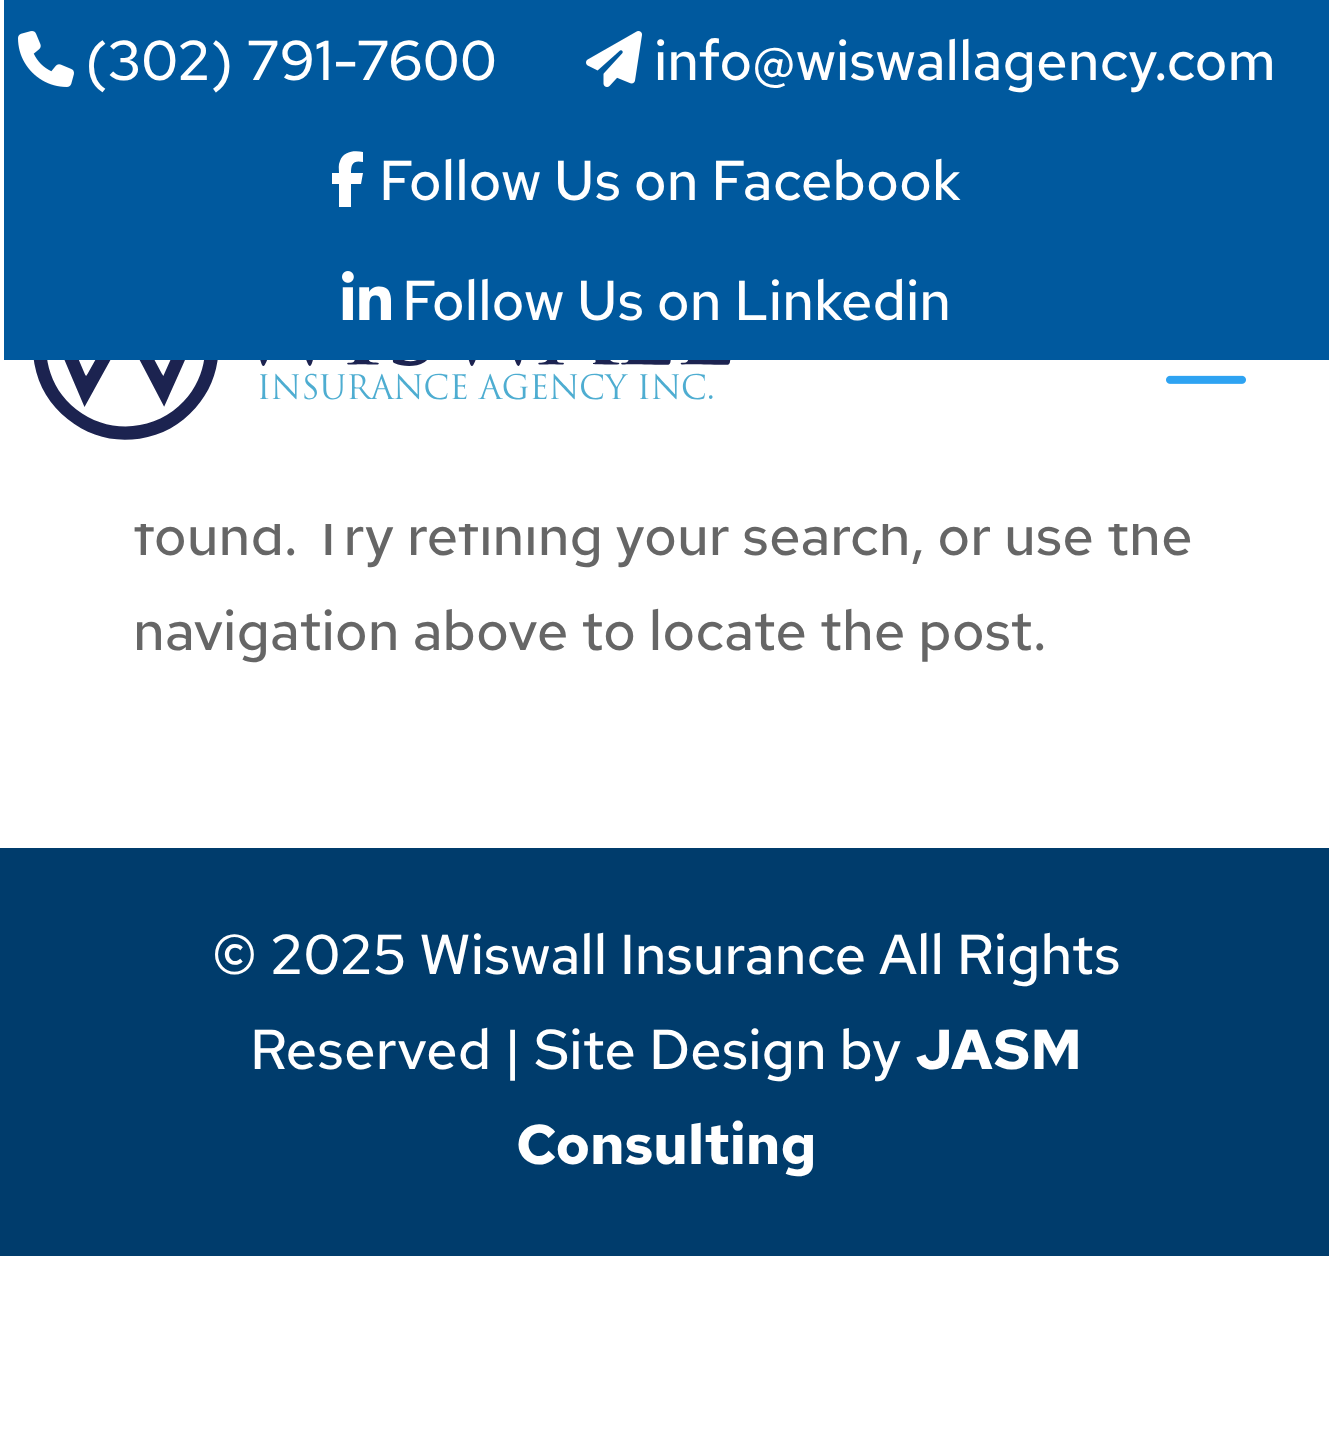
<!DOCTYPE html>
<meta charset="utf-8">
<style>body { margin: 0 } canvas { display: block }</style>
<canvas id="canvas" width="1329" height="1430"></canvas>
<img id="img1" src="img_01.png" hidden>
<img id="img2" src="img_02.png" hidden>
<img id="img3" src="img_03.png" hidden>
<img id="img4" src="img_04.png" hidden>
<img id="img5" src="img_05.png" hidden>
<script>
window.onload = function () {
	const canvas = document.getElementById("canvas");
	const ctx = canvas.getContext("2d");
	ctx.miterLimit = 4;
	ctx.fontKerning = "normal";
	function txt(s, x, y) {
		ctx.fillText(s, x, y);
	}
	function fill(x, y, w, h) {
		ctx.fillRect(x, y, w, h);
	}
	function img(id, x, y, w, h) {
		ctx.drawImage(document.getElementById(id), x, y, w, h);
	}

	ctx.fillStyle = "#FFFFFF";
	fill(0, 0, 1329, 1430);
	ctx.fillStyle = "#00599E";
	fill(4, 0, 1325, 360);
	img("img1", 18, 31, 56, 56);
	img("img2", 586, 31, 56, 56);
	ctx.fillStyle = "#FFFFFF";
	ctx.beginPath();
	ctx.moveTo(339, 184);
	ctx.lineTo(339, 207);
	ctx.lineTo(339, 184);
	ctx.lineTo(339, 207);
	ctx.lineTo(351, 207);
	ctx.lineTo(351, 184);
	ctx.lineTo(361, 184);
	ctx.lineTo(363, 173);
	ctx.lineTo(351, 173);
	ctx.bezierCurveTo(351, 164, 353, 160, 363, 162);
	ctx.lineTo(363, 152);
	ctx.bezierCurveTo(355, 150, 343, 151, 340, 161);
	ctx.bezierCurveTo(338, 165, 339, 169, 339, 173);
	ctx.lineTo(332, 173);
	ctx.lineTo(332, 184);
	ctx.closePath();
	ctx.fill();
	img("img3", 342, 271, 49, 49);
	img("img4", 33, 360, 698, 80);
	img("img5", 1166, 375, 80, 9);
	ctx.fillStyle = "#003C6C";
	fill(0, 848, 1329, 408);
	ctx.font = "500 56px Red Hat Text";
	ctx.fillStyle = "#FFFFFF";
	txt("(302) 791-7600", 85, 80);
	txt("info@wiswallagency.com", 654, 80);
	txt("Follow Us on Facebook", 379, 200);
	txt("Follow Us on Linkedin", 402, 320);
	ctx.fillStyle = "#666666";
	txt("found. Try refining your search, or use the", 133, 555);
	ctx.fillStyle = "#FFFFFF";
	fill(140, 513, 999, 11);
	ctx.fillStyle = "#666666";
	txt("navigation above to locate the post.", 133, 650);
	ctx.fillStyle = "#FFFFFF";
	txt("© 2025 Wiswall Insurance All Rights", 212, 974);
	txt("Reserved | Site Design by", 250, 1069);
	ctx.font = "bold 56px Red Hat Text";
	txt("JASM", 915, 1069);
	txt("Consulting", 516, 1164);
};
</script>
